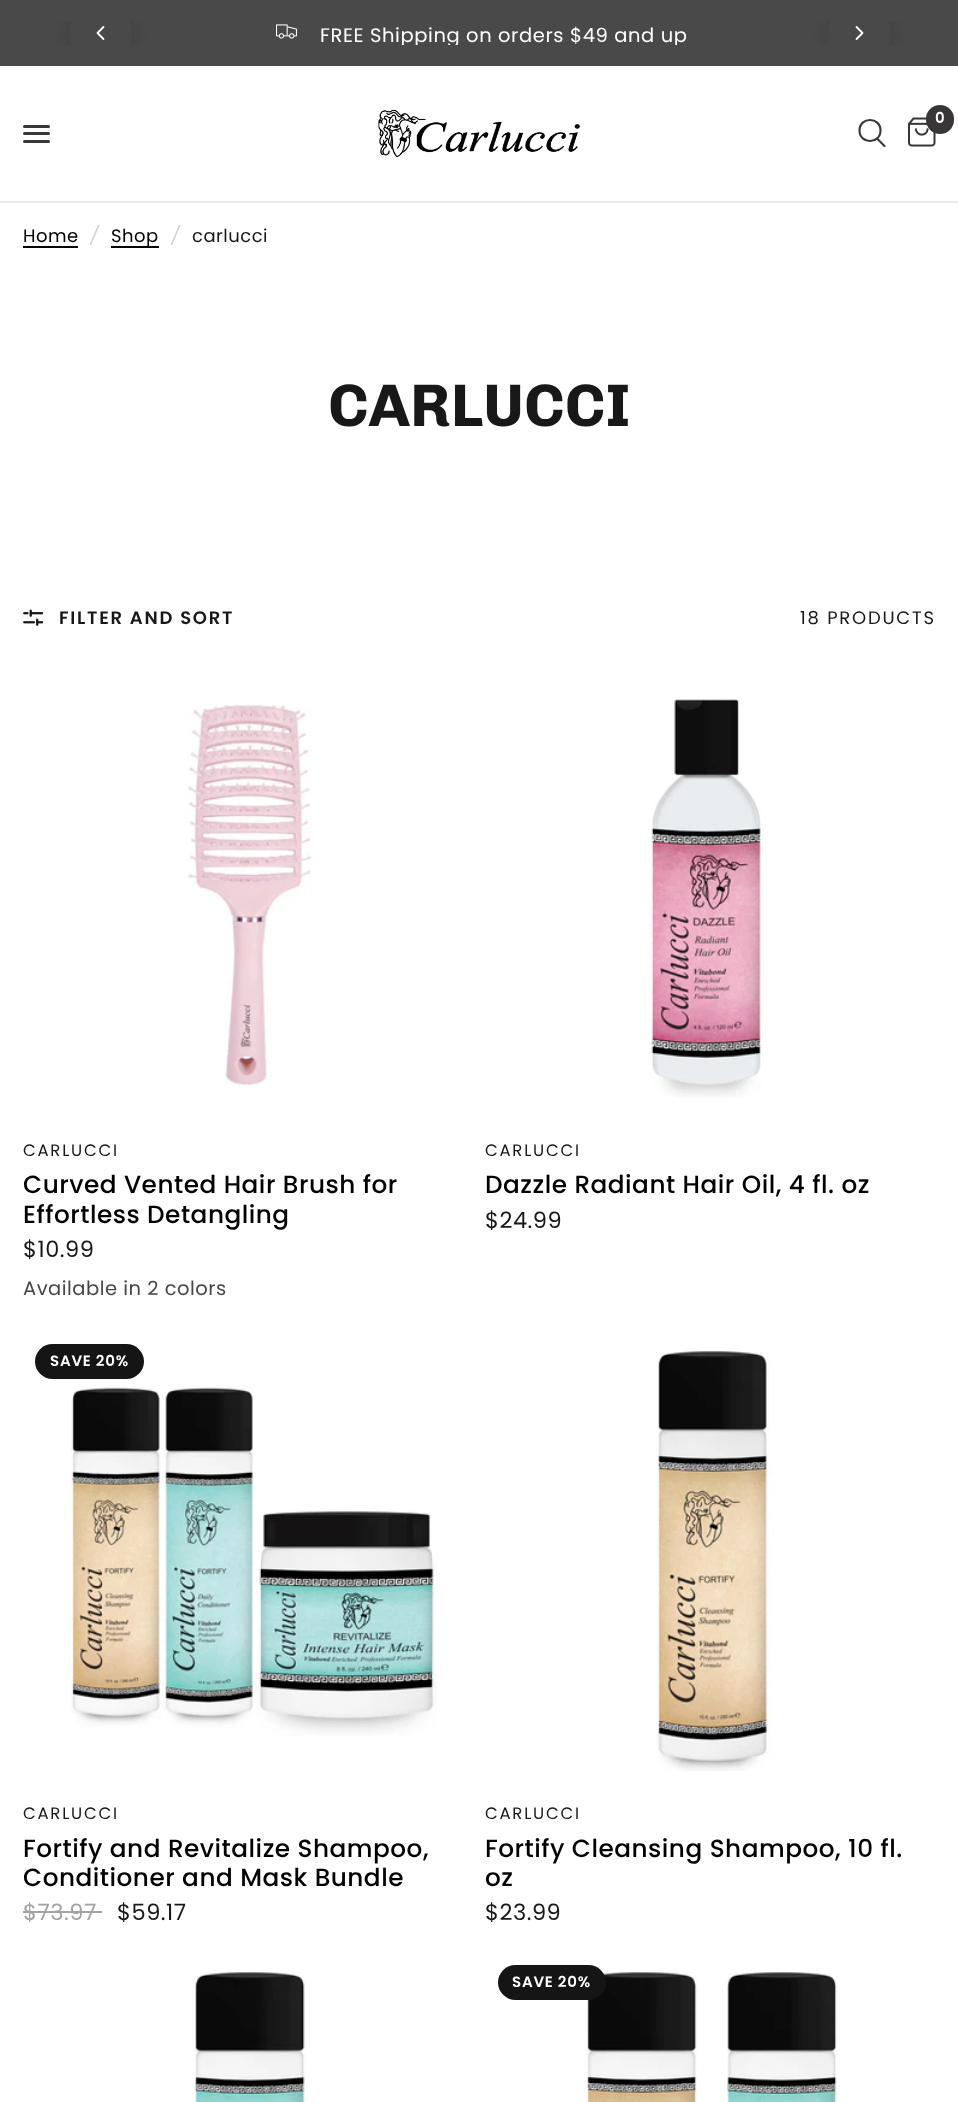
<!DOCTYPE html>
<meta charset="utf-8">
<style>body { margin: 0 } canvas { display: block }</style>
<canvas id="canvas" width="958" height="2102"></canvas>
<img id="img1" src="img_01.png" hidden>
<img id="img2" src="img_02.png" hidden>
<img id="img3" src="img_03.png" hidden>
<img id="img4" src="img_04.png" hidden>
<img id="img5" src="img_05.png" hidden>
<img id="img6" src="img_06.png" hidden>
<img id="img7" src="img_07.png" hidden>
<img id="img8" src="img_08.png" hidden>
<img id="img9" src="img_09.png" hidden>
<img id="img10" src="img_10.png" hidden>
<script>
window.onload = function () {
	const canvas = document.getElementById("canvas");
	const ctx = canvas.getContext("2d");
	ctx.miterLimit = 4;
	ctx.fontKerning = "normal";
	function txt(s, x, y) {
		ctx.fillText(s, x, y);
	}
	function fill(x, y, w, h) {
		ctx.fillRect(x, y, w, h);
	}
	function round(x, y, w, h, r) {
		ctx.beginPath();
		ctx.roundRect(x, y, w, h, r);
		ctx.fill();
	}
	function img(id, x, y, w, h) {
		ctx.drawImage(document.getElementById(id), x, y, w, h);
	}
	let gradient;

	ctx.fillStyle = "#FFFFFF";
	fill(0, 0, 958, 2102);
	ctx.fillStyle = "#494949";
	fill(0, 0, 958, 66);
	ctx.save();
	ctx.beginPath();
	ctx.rect(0, 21, 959, 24);
	ctx.clip();
	ctx.fillStyle = "rgba(0, 0, 0, 0.15)";
	ctx.filter = "blur(7.5px)";
	ctx.beginPath();
	ctx.roundRect(69, 5, 63, 63, 31.5);
	ctx.fill();
	ctx.filter = "none";
	ctx.restore();
	ctx.save();
	ctx.beginPath();
	ctx.rect(0, 21, 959, 24);
	ctx.clip();
	ctx.beginPath();
	ctx.arc(100.5, 33.5, 31.5, 0, Math.PI * 2);
	ctx.fill();
	ctx.restore();
	ctx.beginPath();
	ctx.moveTo(103.5, 27);
	ctx.lineTo(97.5, 33);
	ctx.lineTo(103.5, 39);
	ctx.strokeStyle = "#FFFFFF";
	ctx.lineWidth = 1.8;
	ctx.lineCap = "round";
	ctx.lineJoin = "round";
	ctx.stroke();
	gradient = ctx.createLinearGradient(180, 33, 105, 33);
	gradient.addColorStop(0, "rgba(73, 73, 73, 0)");
	gradient.addColorStop(1, "#494949");
	ctx.fillStyle = gradient;
	fill(130, 41, 2, 4);
	img("img1", 276, 24, 21, 15);
	ctx.save();
	ctx.beginPath();
	ctx.rect(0, 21, 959, 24);
	ctx.clip();
	ctx.fillStyle = "rgba(0, 0, 0, 0.15)";
	ctx.filter = "blur(7.5px)";
	ctx.beginPath();
	ctx.roundRect(828, 5, 63, 63, 31.5);
	ctx.fill();
	ctx.filter = "none";
	ctx.restore();
	ctx.save();
	ctx.beginPath();
	ctx.rect(0, 21, 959, 24);
	ctx.clip();
	ctx.fillStyle = "#494949";
	ctx.beginPath();
	ctx.arc(859.5, 33.5, 31.5, 0, Math.PI * 2);
	ctx.fill();
	ctx.restore();
	gradient = ctx.createLinearGradient(780, 33, 855, 33);
	gradient.addColorStop(0, "rgba(73, 73, 73, 0)");
	gradient.addColorStop(1, "#494949");
	ctx.fillStyle = gradient;
	fill(827, 30, 3, 15);
	ctx.beginPath();
	ctx.moveTo(856.5, 27);
	ctx.lineTo(862.5, 33);
	ctx.lineTo(856.5, 39);
	ctx.stroke();
	ctx.fillStyle = "#EAEAEA";
	fill(0, 201, 958, 2);
	img("img2", 378, 109, 203, 49);
	img("img3", 908, 117, 28, 30);
	ctx.fillStyle = "#383636";
	round(926, 105, 28, 29, 14);
	ctx.beginPath();
	ctx.moveTo(877.5, 139);
	ctx.lineTo(884.5, 146);
	ctx.moveTo(880.5, 130.5);
	ctx.bezierCurveTo(880.5, 144.5, 859.5, 144.5, 859.5, 130.5);
	ctx.bezierCurveTo(859.5, 116.5, 880.5, 116.5, 880.5, 130.5);
	ctx.closePath();
	ctx.strokeStyle = "#383636";
	ctx.lineWidth = 2.1;
	ctx.stroke();
	round(23, 125, 27, 3, 1.5);
	round(23, 132, 27, 3, 1.5);
	round(23, 140, 27, 3, 1.5);
	ctx.fillStyle = "#000000";
	fill(23, 246, 55, 2);
	fill(111, 246, 48, 2);
	img("img4", 23, 609, 21, 17);
	img("img5", 186, 704, 126, 382);
	img("img6", 649, 699, 115, 399);
	ctx.fillStyle = "#151515";
	round(35, 1344, 109, 35, 17.5);
	img("img7", 70, 1385, 367, 351);
	ctx.fillStyle = "#A3A3A3";
	fill(23, 1911, 79, 2);
	img("img8", 656, 1351, 118, 420);
	img("img9", 193, 1972, 114, 130);
	img("img10", 586, 1972, 251, 130);
	ctx.fillStyle = "#151515";
	round(498, 1965, 108, 35, 17.5);
	ctx.save();
	ctx.beginPath();
	ctx.rect(105, 21, 750, 24);
	ctx.clip();
	ctx.letterSpacing = "0.6px";
	ctx.font = "19.5px Poppins";
	ctx.fillStyle = "#FFFFFF";
	txt("FREE Shipping on orders $49 and up", 320, 42);
	ctx.restore();
	ctx.letterSpacing = "0.5px";
	ctx.font = "600 15px Poppins";
	ctx.fillStyle = "#FFFFFF";
	txt("0", 935, 123);
	ctx.font = "18px Poppins";
	ctx.fillStyle = "#000000";
	txt("Home", 23, 242);
	ctx.font = "italic 18px Poppins";
	ctx.fillStyle = "#D1D1D1";
	txt("/", 90, 242);
	ctx.font = "18px Poppins";
	ctx.fillStyle = "#000000";
	txt("Shop", 111, 242);
	ctx.font = "italic 18px Poppins";
	ctx.fillStyle = "#D1D1D1";
	txt("/", 171, 242);
	ctx.font = "18px Poppins";
	ctx.fillStyle = "#181818";
	txt("carlucci", 192, 242);
	ctx.letterSpacing = "0px";
	ctx.font = "bold 60px Chivo";
	txt("CARLUCCI", 328, 426);
	ctx.letterSpacing = "1.75px";
	ctx.font = "600 18px Poppins";
	txt("FILTER AND SORT", 59, 624);
	ctx.font = "18px Poppins";
	txt("18 PRODUCTS", 800, 624);
	ctx.font = "16.5px Poppins";
	txt("CARLUCCI", 23, 1156);
	ctx.letterSpacing = "0.5px";
	ctx.font = "500 24.75px Poppins";
	ctx.fillStyle = "#000000";
	txt("Curved Vented Hair Brush for", 23, 1193);
	txt("Effortless Detangling", 23, 1223);
	ctx.font = "22.5px Poppins";
	ctx.fillStyle = "#181818";
	txt("$10.99", 23, 1257);
	ctx.font = "19.5px Poppins";
	ctx.fillStyle = "#464646";
	txt("Available in 2 colors", 23, 1295);
	ctx.letterSpacing = "1.75px";
	ctx.font = "16.5px Poppins";
	ctx.fillStyle = "#181818";
	txt("CARLUCCI", 485, 1156);
	ctx.letterSpacing = "0.5px";
	ctx.font = "500 24.75px Poppins";
	ctx.fillStyle = "#000000";
	txt("Dazzle Radiant Hair Oil, 4 fl. oz", 485, 1193);
	ctx.font = "22.5px Poppins";
	ctx.fillStyle = "#181818";
	txt("$24.99", 485, 1228);
	ctx.letterSpacing = "0.75px";
	ctx.font = "600 15px Poppins";
	ctx.fillStyle = "#FFFFFF";
	txt("SAVE 20%", 50, 1366);
	ctx.letterSpacing = "1.75px";
	ctx.font = "16.5px Poppins";
	ctx.fillStyle = "#181818";
	txt("CARLUCCI", 23, 1819);
	ctx.letterSpacing = "0.5px";
	ctx.font = "500 24.75px Poppins";
	ctx.fillStyle = "#000000";
	txt("Fortify and Revitalize Shampoo,", 23, 1857);
	txt("Conditioner and Mask Bundle", 23, 1886);
	ctx.font = "22.5px Poppins";
	ctx.fillStyle = "#A3A3A3";
	txt("$73.97", 23, 1920);
	ctx.fillStyle = "#181818";
	txt("$59.17", 117, 1920);
	ctx.letterSpacing = "1.75px";
	ctx.font = "16.5px Poppins";
	txt("CARLUCCI", 485, 1819);
	ctx.letterSpacing = "0.5px";
	ctx.font = "500 24.75px Poppins";
	ctx.fillStyle = "#000000";
	txt("Fortify Cleansing Shampoo, 10 fl.", 485, 1857);
	txt("oz", 485, 1886);
	ctx.font = "22.5px Poppins";
	ctx.fillStyle = "#181818";
	txt("$23.99", 485, 1920);
	ctx.letterSpacing = "0.75px";
	ctx.font = "600 15px Poppins";
	ctx.fillStyle = "#FFFFFF";
	txt("SAVE 20%", 512, 1987);
};
</script>
